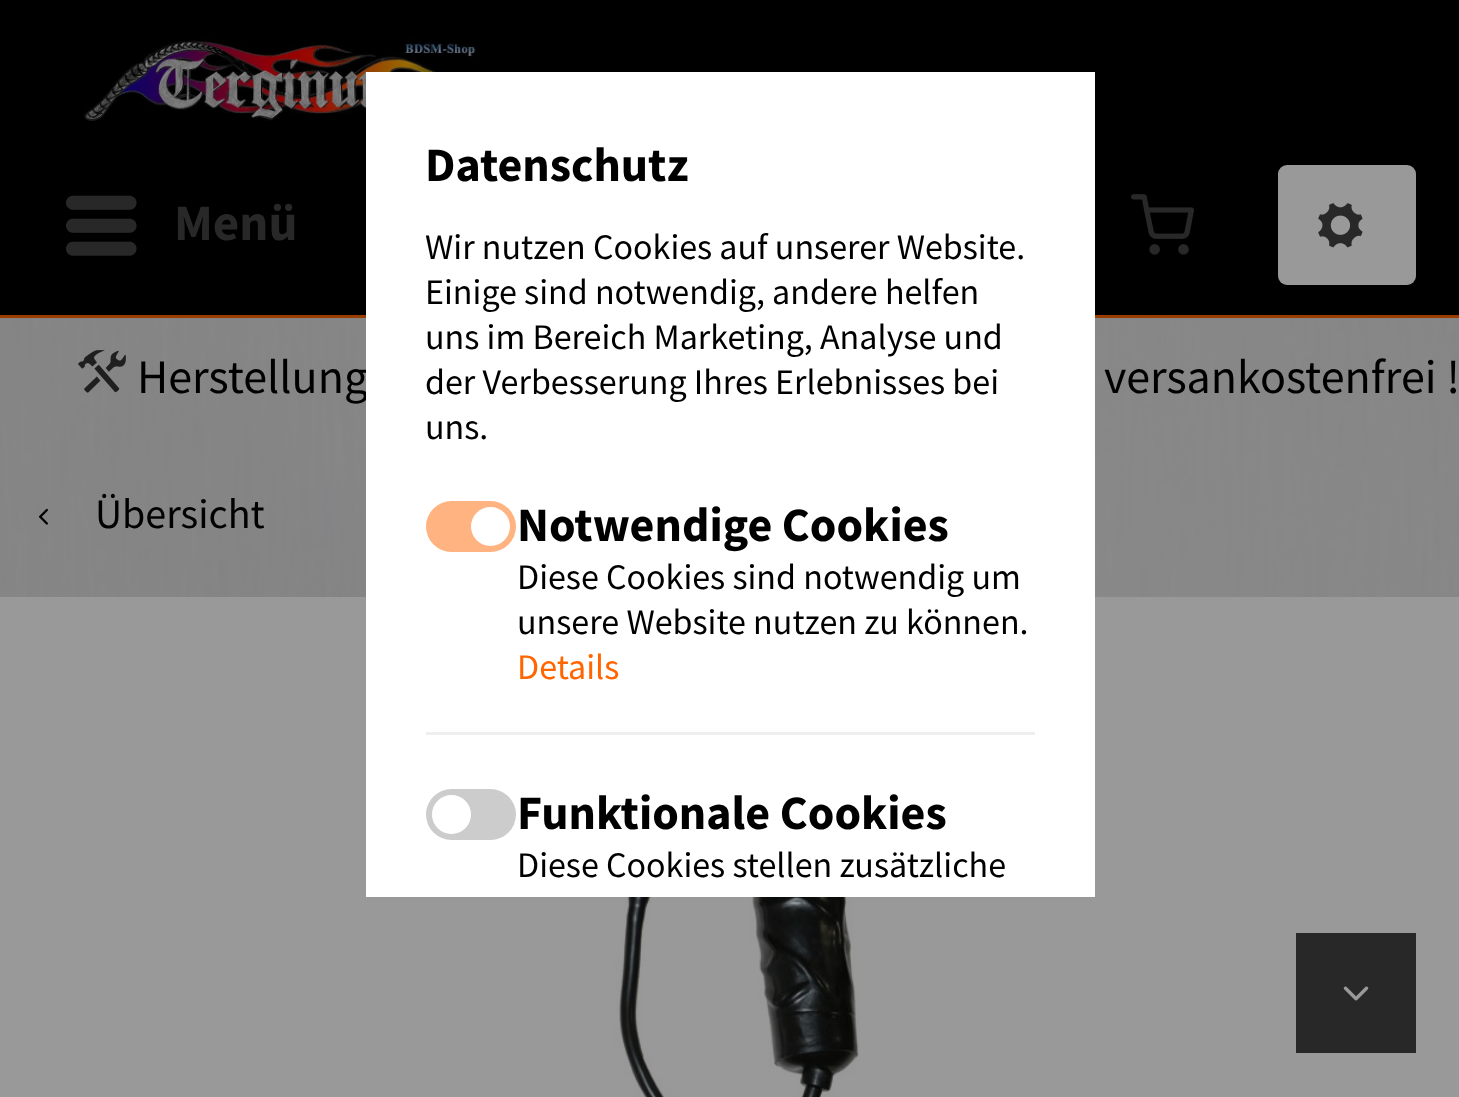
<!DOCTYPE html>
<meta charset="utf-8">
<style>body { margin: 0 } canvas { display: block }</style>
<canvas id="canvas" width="1459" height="1097"></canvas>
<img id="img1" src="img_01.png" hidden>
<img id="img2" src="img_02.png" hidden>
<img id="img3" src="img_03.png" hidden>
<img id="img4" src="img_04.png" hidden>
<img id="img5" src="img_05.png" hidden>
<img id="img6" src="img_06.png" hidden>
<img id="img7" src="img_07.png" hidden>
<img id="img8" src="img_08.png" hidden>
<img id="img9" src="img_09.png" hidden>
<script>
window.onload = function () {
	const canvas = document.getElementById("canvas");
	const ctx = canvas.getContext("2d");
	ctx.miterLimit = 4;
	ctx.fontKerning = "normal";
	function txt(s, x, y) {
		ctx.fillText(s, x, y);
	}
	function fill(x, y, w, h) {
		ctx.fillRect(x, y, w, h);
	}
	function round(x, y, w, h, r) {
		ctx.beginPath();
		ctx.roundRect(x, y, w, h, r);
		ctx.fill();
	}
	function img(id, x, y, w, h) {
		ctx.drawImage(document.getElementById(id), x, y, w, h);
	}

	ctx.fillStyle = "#FFFFFF";
	fill(0, 0, 1459, 1097);
	img("img1", 0, 318, 1459, 279);
	ctx.fillStyle = "#000000";
	fill(0, 0, 1459, 315);
	ctx.fillStyle = "#993D00";
	fill(0, 315, 1459, 3);
	img("img2", 83, 38, 396, 83);
	img("img3", 66, 195, 71, 61);
	img("img4", 1131, 194, 63, 61);
	ctx.fillStyle = "#999999";
	round(1278, 165, 138, 120, 9);
	img("img5", 1318, 203, 45, 45);
	ctx.fillStyle = "rgba(153, 153, 153, 0.8)";
	fill(0, 318, 1459, 114);
	img("img6", 78, 350, 48, 43);
	fill(0, 432, 1459, 165);
	img("img7", 39, 508, 9, 17);
	ctx.fillStyle = "#838389";
	fill(324, 486, 3, 54);
	ctx.fillStyle = "#999999";
	fill(0, 597, 1459, 500);
	img("img8", 604, 897, 255, 200);
	ctx.fillStyle = "#282828";
	fill(1296, 933, 120, 120);
	img("img9", 1343, 986, 26, 15);
	ctx.font = "bold 51px Source Sans Pro";
	txt("Menü", 174, 240);
	ctx.font = "48px Source Sans Pro";
	ctx.fillStyle = "#000000";
	txt("Herstellung", 137, 393);
	ctx.fillStyle = "#FFFFFF";
	fill(366, 72, 729, 825);
	ctx.fillStyle = "#CCCCCC";
	round(426, 789, 90, 51, 25.5);
	ctx.fillStyle = "#FFFFFF";
	ctx.beginPath();
	ctx.arc(451.5, 814.5, 19.5, 0, Math.PI * 2);
	ctx.fill();
	ctx.fillStyle = "#FFB380";
	round(426, 501, 90, 51, 25.5);
	ctx.fillStyle = "#FFFFFF";
	ctx.beginPath();
	ctx.arc(490.5, 526.5, 19.5, 0, Math.PI * 2);
	ctx.fill();
	ctx.font = "36px Source Sans Pro";
	ctx.fillStyle = "#000000";
	txt("Diese Cookies stellen zusätzliche", 517, 877);
	ctx.font = "bold 48px Source Sans Pro";
	txt("Funktionale Cookies", 517, 829);
	ctx.font = "36px Source Sans Pro";
	ctx.fillStyle = "#FF6600";
	txt("Details", 517, 679);
	ctx.fillStyle = "#000000";
	txt("unsere Website nutzen zu können.", 517, 634);
	txt("Diese Cookies sind notwendig um", 517, 589);
	ctx.font = "bold 48px Source Sans Pro";
	txt("Notwendige Cookies", 517, 541);
	ctx.font = "36px Source Sans Pro";
	txt("uns.", 425, 439);
	txt("der Verbesserung Ihres Erlebnisses bei", 425, 394);
	txt("uns im Bereich Marketing, Analyse und", 425, 349);
	txt("Einige sind notwendig, andere helfen", 425, 304);
	txt("Wir nutzen Cookies auf unserer Website.", 425, 259);
	ctx.font = "bold 48px Source Sans Pro";
	txt("Datenschutz", 425, 181);
	ctx.fillStyle = "#EFEFEF";
	fill(426, 732, 609, 3);
	ctx.font = "48px Source Sans Pro";
	ctx.fillStyle = "#000000";
	txt("versankostenfrei !", 1104, 393);
	ctx.font = "42px Source Sans Pro";
	txt("Übersicht", 95, 528);
};
</script>
